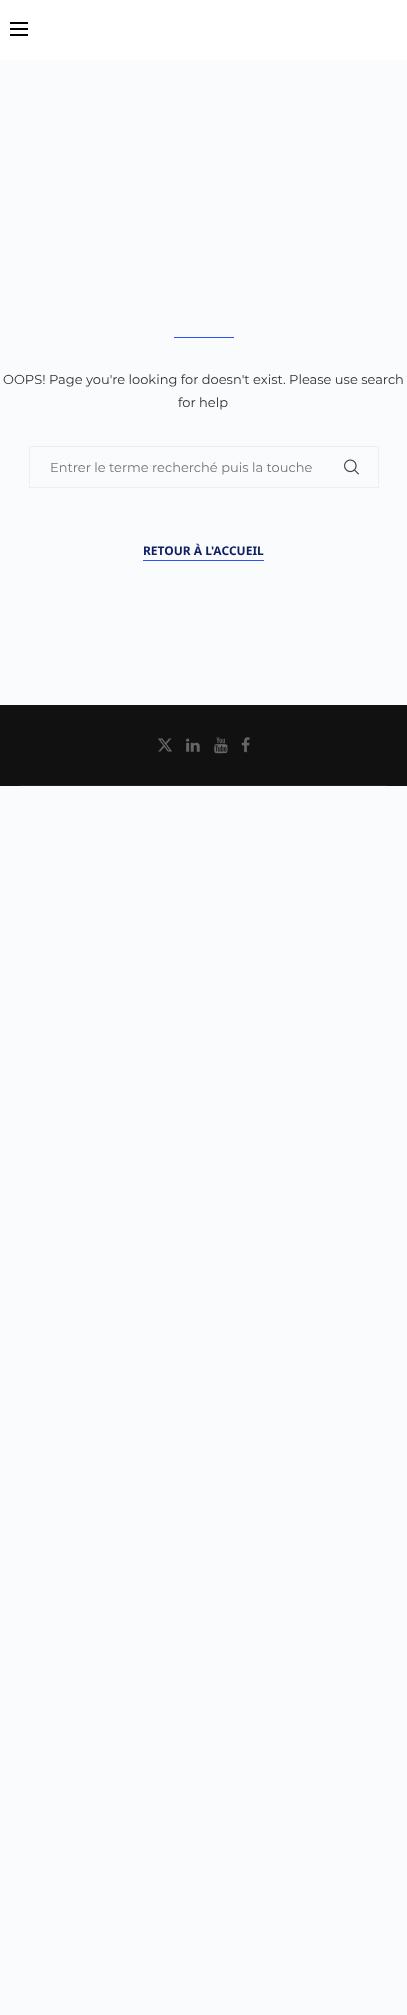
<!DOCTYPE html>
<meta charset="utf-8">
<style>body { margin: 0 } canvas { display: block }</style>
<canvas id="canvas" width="407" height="2015"></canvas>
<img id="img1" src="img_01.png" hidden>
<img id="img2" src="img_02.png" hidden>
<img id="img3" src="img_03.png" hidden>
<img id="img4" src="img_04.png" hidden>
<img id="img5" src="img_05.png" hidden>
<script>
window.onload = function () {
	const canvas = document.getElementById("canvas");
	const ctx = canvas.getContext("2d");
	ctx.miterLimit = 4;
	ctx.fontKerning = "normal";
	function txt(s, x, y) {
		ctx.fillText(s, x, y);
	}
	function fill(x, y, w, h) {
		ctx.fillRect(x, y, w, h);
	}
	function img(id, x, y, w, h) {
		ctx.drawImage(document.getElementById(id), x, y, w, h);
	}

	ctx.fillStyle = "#F9FBFD";
	fill(0, 0, 407, 2015);
	ctx.fillStyle = "#FFFFFF";
	fill(0, 0, 407, 60);
	ctx.fillStyle = "#000000";
	fill(10, 22, 18, 2);
	fill(10, 28, 18, 2);
	fill(10, 34, 18, 2);
	ctx.fillStyle = "#304FFE";
	fill(174, 337, 60, 1);
	ctx.strokeStyle = "#EEEEEE";
	ctx.strokeRect(29.5, 446.5, 349, 41);
	img("img1", 344, 459, 15, 16);
	fill(143, 560, 121, 1);
	ctx.fillStyle = "#111111";
	fill(0, 705, 407, 81);
	ctx.fillStyle = "#212121";
	fill(20, 785, 367, 1);
	img("img2", 158, 738, 14, 14);
	img("img3", 186, 738, 14, 14);
	img("img4", 214, 737, 14, 17);
	img("img5", 241, 737, 9, 16);
	ctx.font = "13px Montserrat";
	ctx.fillStyle = "#313131";
	txt("OOPS! Page you're looking for doesn't exist. Please use search", 3, 384);
	txt("for help", 178, 407);
	ctx.fillStyle = "#757575";
	txt("Entrer le terme recherché puis la touche", 50, 472);
	ctx.font = "bold 12px Noto Sans";
	ctx.fillStyle = "#0E1F64";
	txt("RETOUR À L'ACCUEIL", 143, 555);
};
</script>
